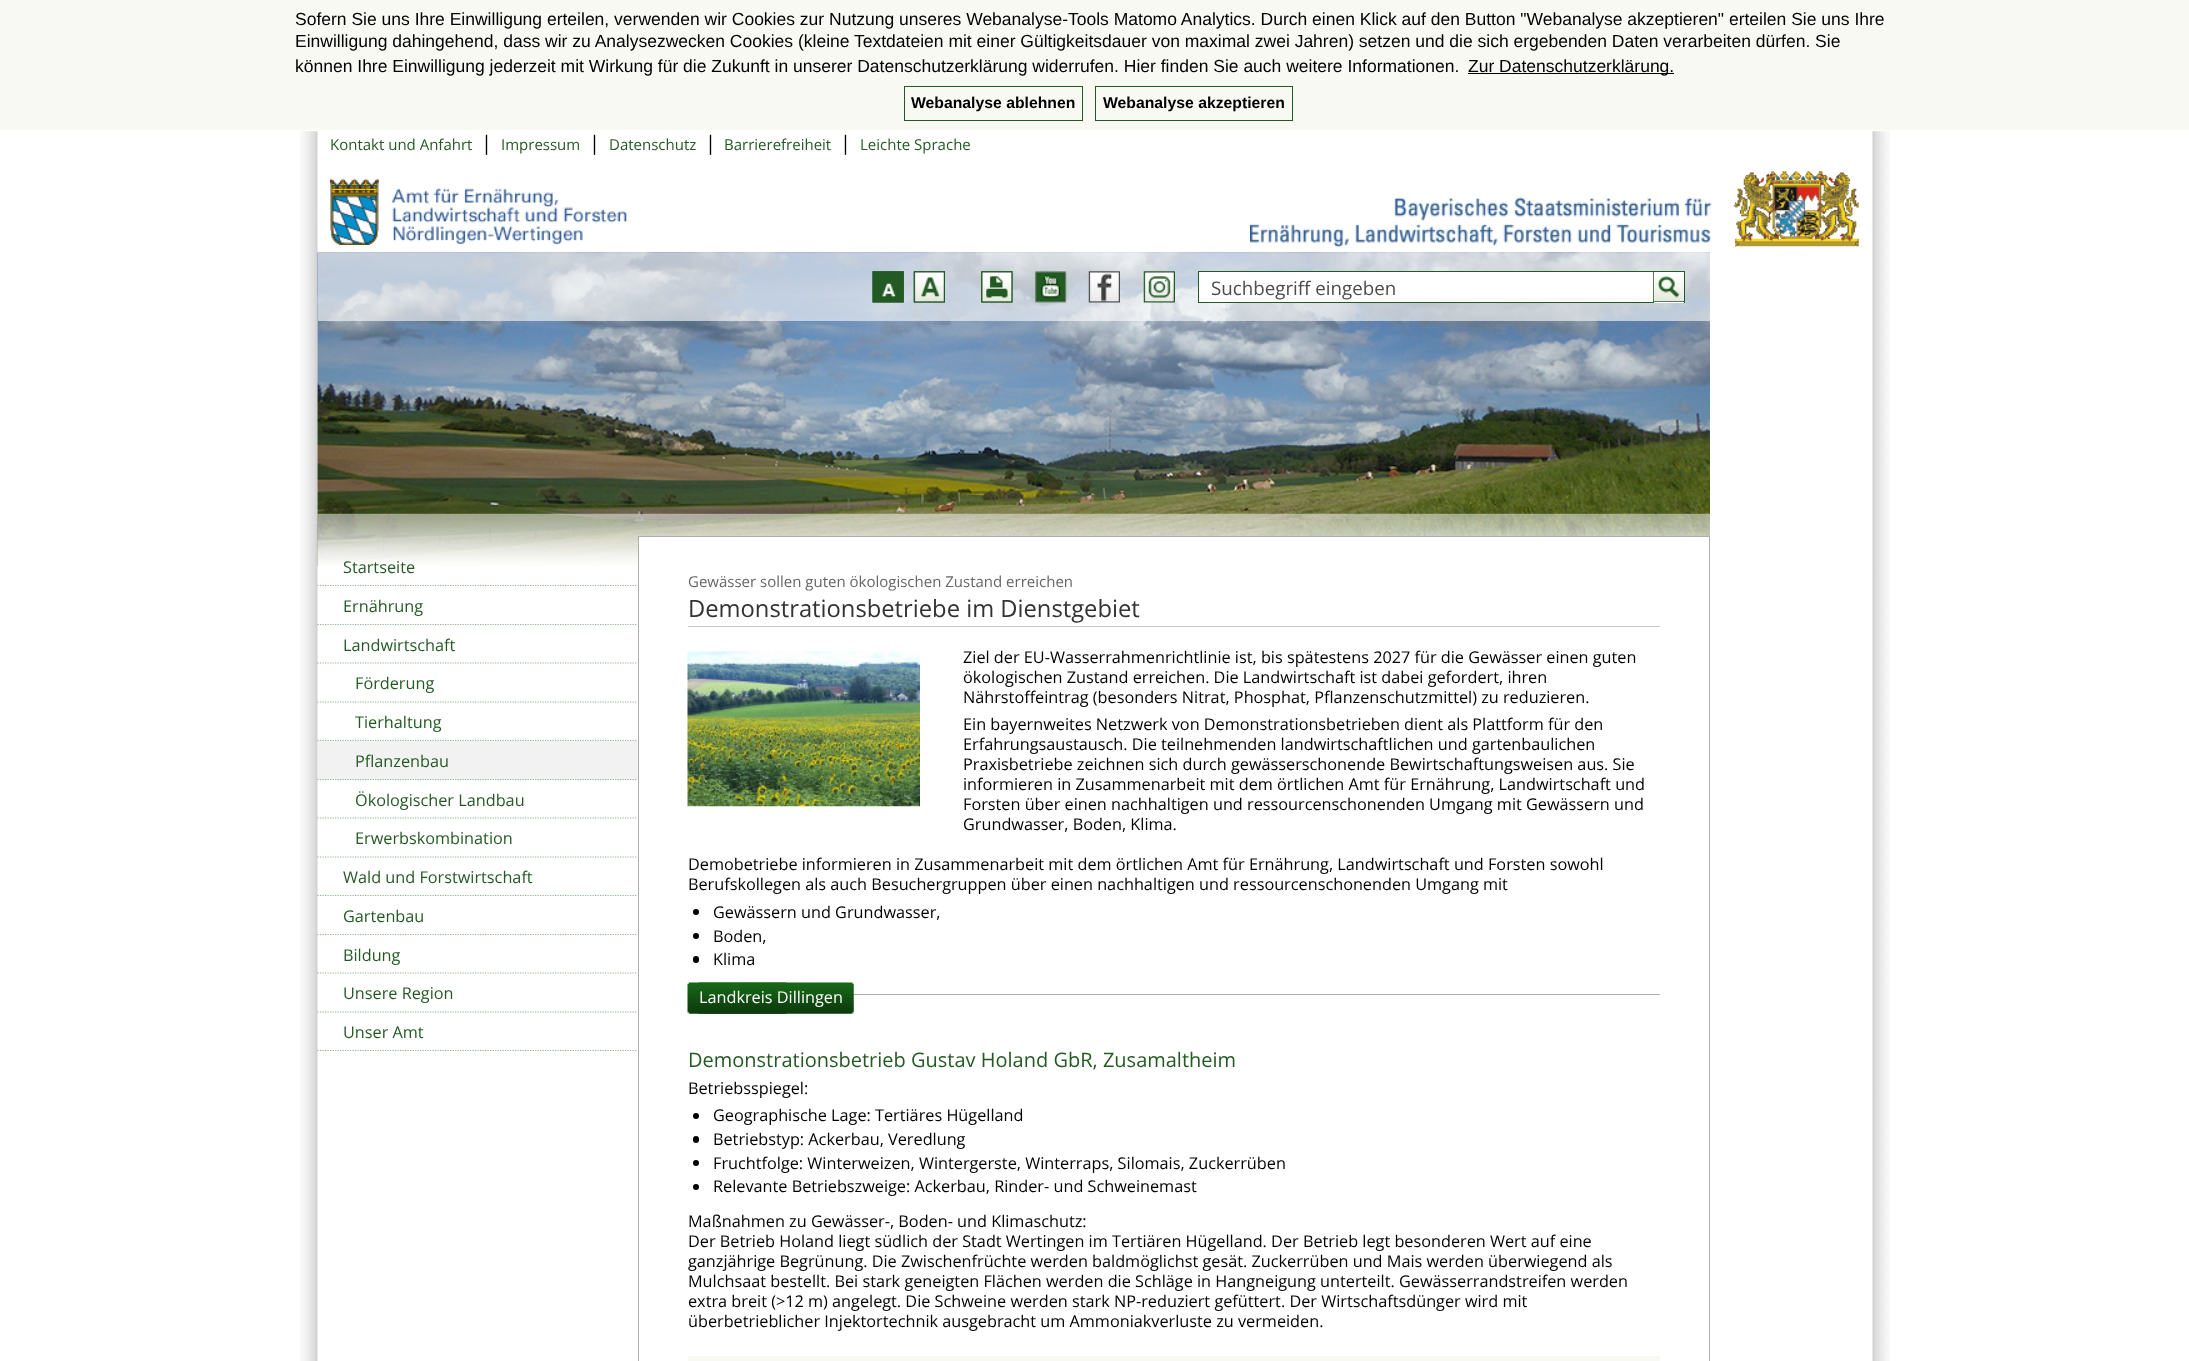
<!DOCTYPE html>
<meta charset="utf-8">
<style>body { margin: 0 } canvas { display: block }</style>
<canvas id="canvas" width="2189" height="1361"></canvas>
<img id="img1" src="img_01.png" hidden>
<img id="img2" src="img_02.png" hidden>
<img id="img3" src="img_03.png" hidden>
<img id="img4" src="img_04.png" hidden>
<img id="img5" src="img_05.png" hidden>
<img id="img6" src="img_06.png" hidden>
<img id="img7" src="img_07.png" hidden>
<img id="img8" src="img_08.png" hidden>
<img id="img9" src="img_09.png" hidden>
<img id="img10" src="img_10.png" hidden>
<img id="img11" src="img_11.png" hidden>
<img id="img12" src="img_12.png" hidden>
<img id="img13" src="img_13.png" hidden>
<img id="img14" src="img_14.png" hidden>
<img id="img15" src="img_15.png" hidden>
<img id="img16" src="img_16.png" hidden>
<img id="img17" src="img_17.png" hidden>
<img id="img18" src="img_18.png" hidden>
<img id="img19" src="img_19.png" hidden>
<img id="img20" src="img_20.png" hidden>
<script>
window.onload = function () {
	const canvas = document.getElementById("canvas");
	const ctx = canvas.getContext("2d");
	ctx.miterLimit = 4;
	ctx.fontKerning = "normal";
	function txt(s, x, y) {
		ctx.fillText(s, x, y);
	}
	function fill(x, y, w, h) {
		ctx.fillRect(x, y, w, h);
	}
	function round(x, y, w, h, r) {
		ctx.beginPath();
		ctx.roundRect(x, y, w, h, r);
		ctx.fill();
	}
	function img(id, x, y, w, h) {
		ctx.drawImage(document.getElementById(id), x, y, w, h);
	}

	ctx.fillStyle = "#FFFFFF";
	fill(0, 0, 2189, 1361);
	ctx.fillStyle = "#F7F9F2";
	fill(0, 0, 2189, 130);
	ctx.fillStyle = "#000000";
	fill(1468, 73, 206, 1);
	ctx.strokeStyle = "#235A23";
	ctx.strokeRect(904.5, 86.5, 178, 34);
	ctx.strokeRect(1095.5, 86.5, 197, 34);
	img("img1", 300, 131, 18, 1230);
	img("img2", 1872, 131, 18, 1230);
	img("img3", 330, 178, 297, 67);
	img("img4", 1250, 195, 462, 52);
	img("img5", 1733, 171, 126, 76);
	img("img6", 317, 252, 1393, 315);
	ctx.fillStyle = "rgba(255, 255, 255, 0.6)";
	fill(318, 253, 1392, 68);
	img("img7", 872, 271, 32, 32);
	img("img8", 872, 271, 32, 32);
	img("img9", 913, 271, 32, 32);
	img("img10", 913, 271, 32, 32);
	img("img11", 981, 271, 32, 32);
	img("img12", 981, 271, 32, 32);
	img("img13", 1035, 271, 32, 32);
	img("img14", 1088, 271, 32, 32);
	img("img15", 1143, 271, 32, 32);
	ctx.fillStyle = "#FFFFFF";
	fill(1199, 272, 454, 30);
	ctx.strokeRect(1198.5, 271.5, 486, 31);
	fill(1654, 272, 30, 31);
	ctx.fillStyle = "#235A23";
	fill(1653, 301, 31, 1);
	fill(1653, 271, 1, 32);
	img("img16", 1653, 272, 31, 30);
	img("img17", 317, 513, 1393, 55);
	ctx.beginPath();
	ctx.moveTo(317.5, 585.5);
	ctx.lineTo(637.5, 585.5);
	ctx.strokeStyle = "#99B299";
	ctx.lineWidth = 1.2;
	ctx.setLineDash([1.25, 1.25]);
	ctx.stroke();
	ctx.beginPath();
	ctx.moveTo(317.5, 624.5);
	ctx.lineTo(637.5, 624.5);
	ctx.stroke();
	ctx.fillStyle = "#FFFFFF";
	fill(318, 625, 318, 1);
	ctx.beginPath();
	ctx.moveTo(317.5, 663);
	ctx.lineTo(637.5, 663);
	ctx.stroke();
	ctx.beginPath();
	ctx.moveTo(317.5, 702);
	ctx.lineTo(637.5, 702);
	ctx.stroke();
	ctx.beginPath();
	ctx.moveTo(317.5, 740.5);
	ctx.lineTo(637.5, 740.5);
	ctx.stroke();
	ctx.fillStyle = "#F2F2F2";
	fill(318, 741, 320, 39);
	ctx.beginPath();
	ctx.moveTo(317.5, 779.5);
	ctx.lineTo(637.5, 779.5);
	ctx.stroke();
	ctx.beginPath();
	ctx.moveTo(317.5, 818);
	ctx.lineTo(637.5, 818);
	ctx.stroke();
	ctx.beginPath();
	ctx.moveTo(317.5, 857);
	ctx.lineTo(637.5, 857);
	ctx.stroke();
	ctx.beginPath();
	ctx.moveTo(317.5, 895.5);
	ctx.lineTo(637.5, 895.5);
	ctx.stroke();
	ctx.beginPath();
	ctx.moveTo(317.5, 934.5);
	ctx.lineTo(637.5, 934.5);
	ctx.stroke();
	ctx.beginPath();
	ctx.moveTo(317.5, 973);
	ctx.lineTo(637.5, 973);
	ctx.stroke();
	ctx.beginPath();
	ctx.moveTo(317.5, 1012);
	ctx.lineTo(637.5, 1012);
	ctx.stroke();
	ctx.beginPath();
	ctx.moveTo(317.5, 1050.5);
	ctx.lineTo(637.5, 1050.5);
	ctx.stroke();
	ctx.fillStyle = "#FFFFFF";
	fill(639, 537, 1070, 29);
	ctx.fillStyle = "#AEAEAE";
	fill(638, 536, 1072, 1);
	fill(1709, 536, 1, 825);
	fill(638, 536, 1, 825);
	ctx.fillStyle = "#C6C6C6";
	fill(688, 626, 972, 1);
	img("img18", 687, 651, 233, 156);
	ctx.fillStyle = "#000000";
	ctx.beginPath();
	ctx.arc(696, 912, 3, 0, Math.PI * 2);
	ctx.fill();
	ctx.beginPath();
	ctx.arc(696, 936, 3, 0, Math.PI * 2);
	ctx.fill();
	round(693, 956, 6, 7, 3);
	img("img19", 687, 982, 100, 32);
	ctx.fillStyle = "#AEAEAE";
	fill(853, 994, 807, 1);
	img("img20", 698, 982, 156, 32);
	ctx.fillStyle = "#000000";
	ctx.beginPath();
	ctx.arc(696, 1116, 3, 0, Math.PI * 2);
	ctx.fill();
	round(693, 1136, 6, 7, 3);
	ctx.beginPath();
	ctx.arc(696, 1163, 3, 0, Math.PI * 2);
	ctx.fill();
	ctx.beginPath();
	ctx.arc(696, 1187, 3, 0, Math.PI * 2);
	ctx.fill();
	ctx.fillStyle = "#F7F9F2";
	fill(688, 1356, 972, 5);
	ctx.font = "17.5px Liberation Sans";
	ctx.fillStyle = "#000000";
	txt("Sofern Sie uns Ihre Einwilligung erteilen, verwenden wir Cookies zur Nutzung unseres Webanalyse-Tools Matomo Analytics. Durch einen Klick auf den Button \"Webanalyse akzeptieren\" erteilen Sie uns Ihre", 295, 25);
	txt("Einwilligung dahingehend, dass wir zu Analysezwecken Cookies (kleine Textdateien mit einer Gültigkeitsdauer von maximal zwei Jahren) setzen und die sich ergebenden Daten verarbeiten dürfen. Sie", 295, 47);
	txt("können Ihre Einwilligung jederzeit mit Wirkung für die Zukunft in unserer Datenschutzerklärung widerrufen. Hier finden Sie auch weitere Informationen.", 295, 72);
	txt("Zur Datenschutzerklärung.", 1468, 72);
	ctx.font = "bold 15.75px Liberation Sans";
	txt("Webanalyse ablehnen", 911, 108);
	txt("Webanalyse akzeptieren", 1103, 108);
	ctx.font = "15px Open Sans";
	ctx.fillStyle = "#235A23";
	txt("Kontakt und Anfahrt", 330, 150);
	ctx.font = "20px Open Sans";
	ctx.fillStyle = "#000000";
	txt("|", 481, 150);
	ctx.font = "15px Open Sans";
	ctx.fillStyle = "#235A23";
	txt("Impressum", 501, 150);
	ctx.font = "20px Open Sans";
	ctx.fillStyle = "#000000";
	txt("|", 589, 150);
	ctx.font = "15px Open Sans";
	ctx.fillStyle = "#235A23";
	txt("Datenschutz", 609, 150);
	ctx.font = "20px Open Sans";
	ctx.fillStyle = "#000000";
	txt("|", 705, 150);
	ctx.font = "15px Open Sans";
	ctx.fillStyle = "#235A23";
	txt("Barrierefreiheit", 724, 150);
	ctx.font = "20px Open Sans";
	ctx.fillStyle = "#000000";
	txt("|", 840, 150);
	ctx.font = "15px Open Sans";
	ctx.fillStyle = "#235A23";
	txt("Leichte Sprache", 860, 150);
	ctx.font = "18.75px Open Sans";
	ctx.fillStyle = "#4C4C4C";
	txt("Suchbegriff eingeben", 1211, 295);
	ctx.font = "16.25px Open Sans";
	ctx.fillStyle = "#235A23";
	txt("Startseite", 343, 573);
	txt("Ernährung", 343, 612);
	txt("Landwirtschaft", 343, 651);
	txt("Förderung", 355, 689);
	txt("Tierhaltung", 355, 728);
	txt("Pflanzenbau", 355, 767);
	txt("Ökologischer Landbau", 355, 806);
	txt("Erwerbskombination", 355, 844);
	txt("Wald und Forstwirtschaft", 343, 883);
	txt("Gartenbau", 343, 922);
	txt("Bildung", 343, 961);
	txt("Unsere Region", 343, 999);
	txt("Unser Amt", 343, 1038);
	ctx.font = "15px Open Sans";
	ctx.fillStyle = "#666666";
	txt("Gewässer sollen guten ökologischen Zustand erreichen", 688, 587);
	ctx.font = "23.75px Open Sans";
	ctx.fillStyle = "#333333";
	txt("Demonstrationsbetriebe im Dienstgebiet", 688, 617);
	ctx.font = "16.25px Open Sans";
	ctx.fillStyle = "#000000";
	txt("Ziel der EU-Wasserrahmenrichtlinie ist, bis spätestens 2027 für die Gewässer einen guten", 963, 663);
	txt("ökologischen Zustand erreichen. Die Landwirtschaft ist dabei gefordert, ihren", 963, 683);
	txt("Nährstoffeintrag (besonders Nitrat, Phosphat, Pflanzenschutzmittel) zu reduzieren.", 963, 703);
	txt("Ein bayernweites Netzwerk von Demonstrationsbetrieben dient als Plattform für den", 963, 730);
	txt("Erfahrungsaustausch. Die teilnehmenden landwirtschaftlichen und gartenbaulichen", 963, 750);
	txt("Praxisbetriebe zeichnen sich durch gewässerschonende Bewirtschaftungsweisen aus. Sie", 963, 770);
	txt("informieren in Zusammenarbeit mit dem örtlichen Amt für Ernährung, Landwirtschaft und", 963, 790);
	txt("Forsten über einen nachhaltigen und ressourcenschonenden Umgang mit Gewässern und", 963, 810);
	txt("Grundwasser, Boden, Klima.", 963, 830);
	txt("Demobetriebe informieren in Zusammenarbeit mit dem örtlichen Amt für Ernährung, Landwirtschaft und Forsten sowohl", 688, 870);
	txt("Berufskollegen als auch Besuchergruppen über einen nachhaltigen und ressourcenschonenden Umgang mit", 688, 890);
	txt("Gewässern und Grundwasser,", 713, 918);
	txt("Boden,", 713, 942);
	txt("Klima", 713, 965);
	ctx.fillStyle = "#FFFFFF";
	txt("Landkreis Dillingen", 699, 1003);
	ctx.font = "20px Open Sans";
	ctx.fillStyle = "#235A23";
	txt("Demonstrationsbetrieb Gustav Holand GbR, Zusamaltheim", 688, 1067);
	ctx.font = "16.25px Open Sans";
	ctx.fillStyle = "#000000";
	txt("Betriebsspiegel:", 688, 1094);
	txt("Geographische Lage: Tertiäres Hügelland", 713, 1121);
	txt("Betriebstyp: Ackerbau, Veredlung", 713, 1145);
	txt("Fruchtfolge: Winterweizen, Wintergerste, Winterraps, Silomais, Zuckerrüben", 713, 1169);
	txt("Relevante Betriebszweige: Ackerbau, Rinder- und Schweinemast", 713, 1192);
	txt("Maßnahmen zu Gewässer-, Boden- und Klimaschutz:", 688, 1227);
	txt("Der Betrieb Holand liegt südlich der Stadt Wertingen im Tertiären Hügelland. Der Betrieb legt besonderen Wert auf eine", 688, 1247);
	txt("ganzjährige Begrünung. Die Zwischenfrüchte werden baldmöglichst gesät. Zuckerrüben und Mais werden überwiegend als", 688, 1267);
	txt("Mulchsaat bestellt. Bei stark geneigten Flächen werden die Schläge in Hangneigung unterteilt. Gewässerrandstreifen werden", 688, 1287);
	txt("extra breit (>12 m) angelegt. Die Schweine werden stark NP-reduziert gefüttert. Der Wirtschaftsdünger wird mit", 688, 1307);
	txt("überbetrieblicher Injektortechnik ausgebracht um Ammoniakverluste zu vermeiden.", 688, 1327);
};
</script>
